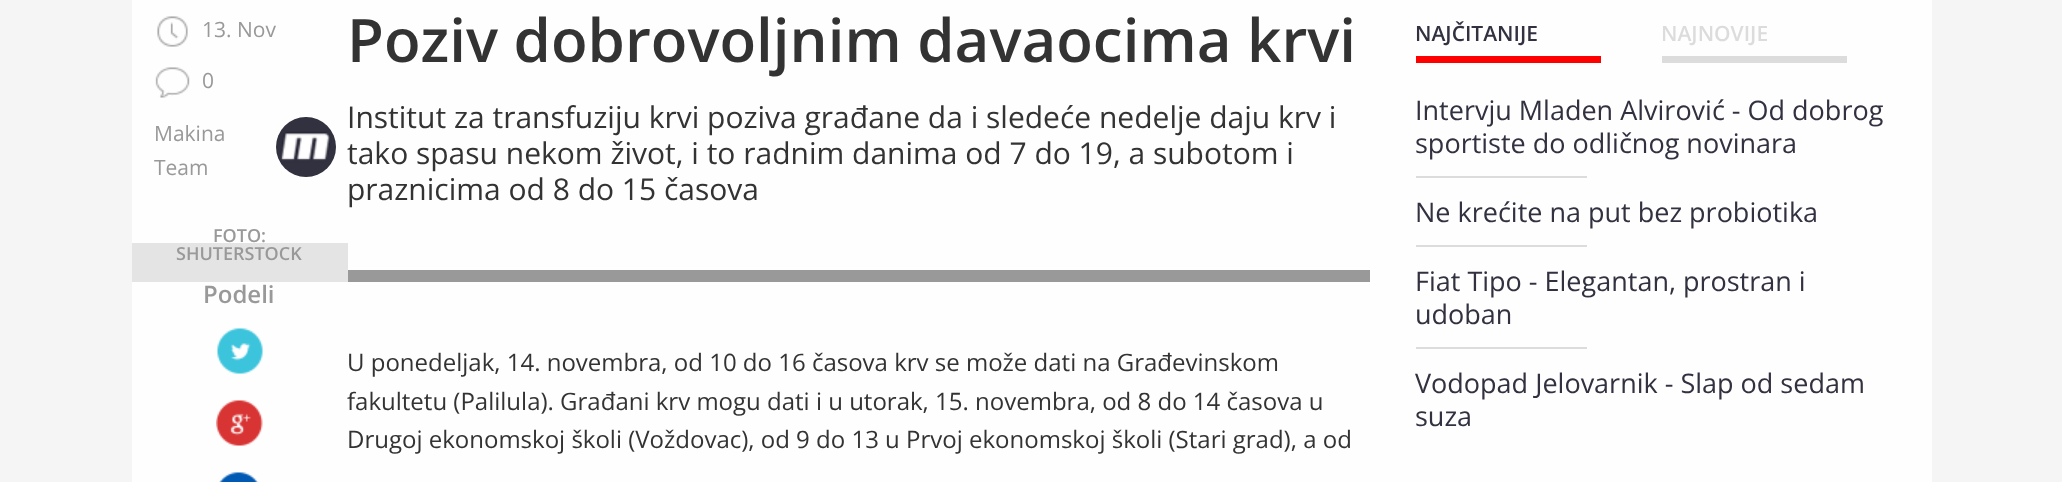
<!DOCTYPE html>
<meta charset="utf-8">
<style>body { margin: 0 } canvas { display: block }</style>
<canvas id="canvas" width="2062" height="482"></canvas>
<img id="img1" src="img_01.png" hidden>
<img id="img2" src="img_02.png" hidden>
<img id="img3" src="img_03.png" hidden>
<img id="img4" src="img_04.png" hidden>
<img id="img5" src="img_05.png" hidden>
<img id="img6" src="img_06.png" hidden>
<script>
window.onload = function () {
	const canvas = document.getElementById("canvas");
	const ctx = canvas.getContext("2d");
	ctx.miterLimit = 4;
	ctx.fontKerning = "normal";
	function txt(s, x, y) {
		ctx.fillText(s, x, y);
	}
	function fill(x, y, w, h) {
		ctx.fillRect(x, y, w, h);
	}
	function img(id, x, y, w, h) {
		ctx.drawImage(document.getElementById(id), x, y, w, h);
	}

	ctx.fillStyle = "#F5F5F5";
	fill(0, 0, 2062, 482);
	ctx.fillStyle = "#FEFEFE";
	fill(132, 0, 1800, 482);
	img("img1", 157, 16, 31, 31);
	img("img2", 155, 67, 35, 31);
	img("img3", 276, 117, 60, 60);
	ctx.fillStyle = "#E4E4E4";
	fill(132, 243, 216, 39);
	ctx.fillStyle = "#999999";
	fill(348, 270, 1022, 12);
	img("img4", 217, 328, 46, 46);
	img("img5", 216, 400, 47, 46);
	img("img6", 219, 472, 40, 10);
	ctx.fillStyle = "#FF0000";
	fill(1416, 56, 185, 7);
	ctx.fillStyle = "#DCDCDC";
	fill(1662, 56, 185, 7);
	fill(1416, 176, 171, 2);
	fill(1416, 245, 171, 2);
	fill(1416, 347, 171, 2);
	ctx.font = "21px Open Sans";
	ctx.fillStyle = "#999999";
	txt("13. Nov", 202, 37);
	txt("0", 202, 88);
	txt("Makina", 154, 141);
	txt("Team", 154, 175);
	ctx.font = "600 60px Open Sans";
	ctx.fillStyle = "#333333";
	txt("Poziv dobrovoljnim davaocima krvi", 347, 62);
	ctx.font = "30px Open Sans";
	txt("Institut za transfuziju krvi poziva građane da i sledeće nedelje daju krv i", 347, 128);
	txt("tako spasu nekom život, i to radnim danima od 7 do 19, a subotom i", 347, 164);
	txt("praznicima od 8 do 15 časova", 347, 200);
	ctx.font = "600 18px Open Sans";
	ctx.fillStyle = "#999999";
	txt("FOTO:", 213, 242);
	txt("SHUTERSTOCK", 176, 260);
	ctx.font = "600 24px Open Sans";
	txt("Podeli", 203, 303);
	ctx.font = "24px Open Sans";
	ctx.fillStyle = "#333333";
	txt("U ponedeljak, 14. novembra, od 10 do 16 časova krv se može dati na Građevinskom", 347, 371);
	txt("fakultetu (Palilula). Građani krv mogu dati i u utorak, 15. novembra, od 8 do 14 časova u", 347, 410);
	txt("Drugoj ekonomskoj školi (Voždovac), od 9 do 13 u Prvoj ekonomskoj školi (Stari grad), a od", 347, 448);
	ctx.font = "600 21px Open Sans";
	ctx.fillStyle = "#313140";
	txt("NAJČITANIJE", 1415, 41);
	ctx.fillStyle = "#DCDCDC";
	txt("NAJNOVIJE", 1661, 41);
	ctx.font = "27px Open Sans";
	ctx.fillStyle = "#313140";
	txt("Intervju Mladen Alvirović - Od dobrog", 1415, 120);
	txt("sportiste do odličnog novinara", 1415, 153);
	txt("Ne krećite na put bez probiotika", 1415, 222);
	txt("Fiat Tipo - Elegantan, prostran i", 1415, 291);
	txt("udoban", 1415, 324);
	txt("Vodopad Jelovarnik - Slap od sedam", 1415, 393);
	txt("suza", 1415, 426);
};
</script>
